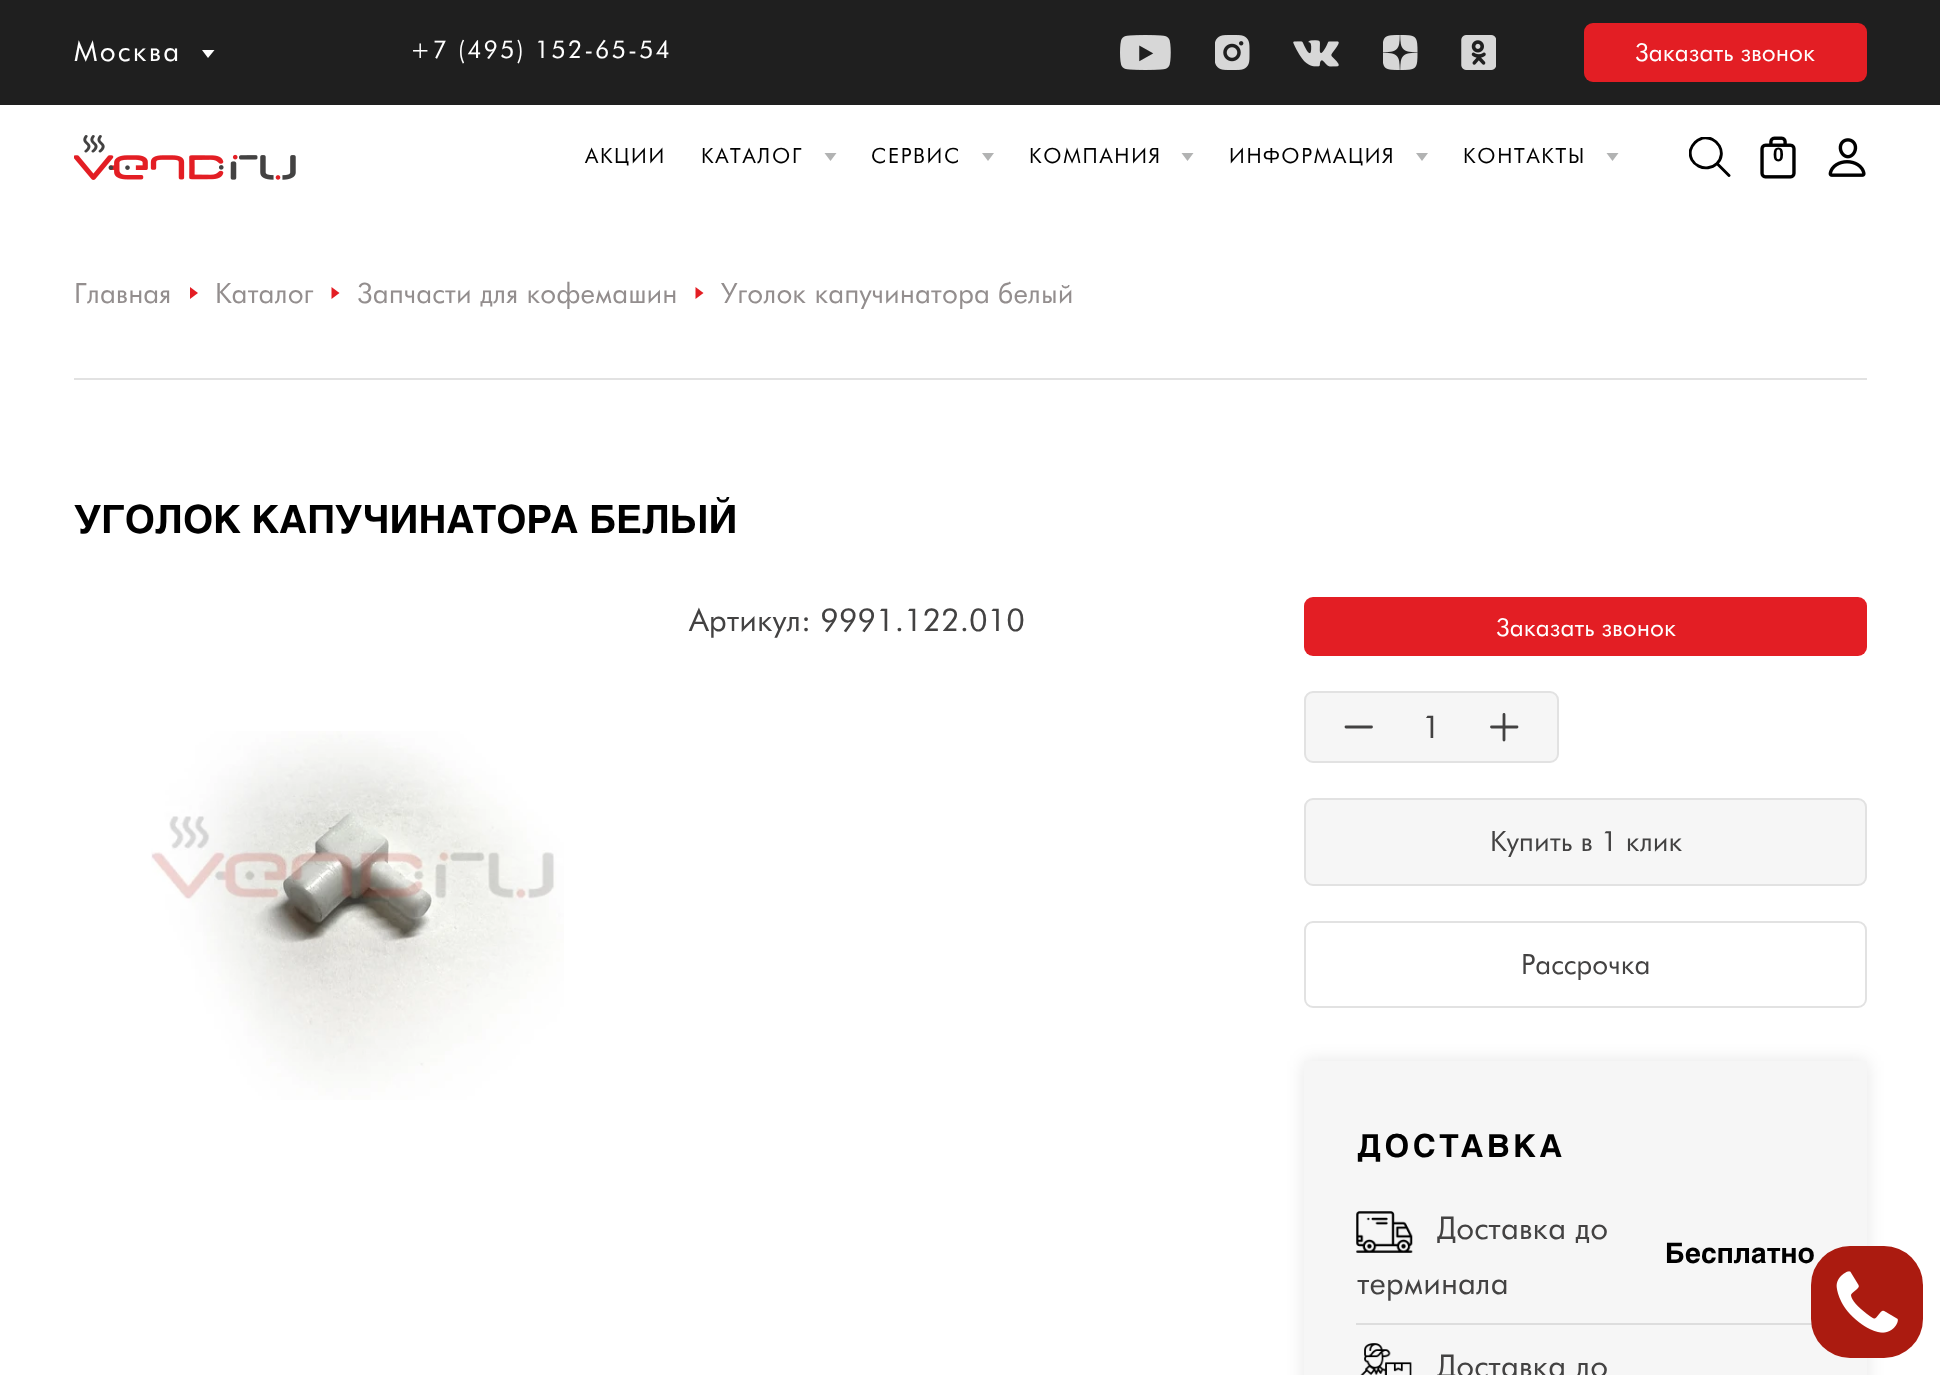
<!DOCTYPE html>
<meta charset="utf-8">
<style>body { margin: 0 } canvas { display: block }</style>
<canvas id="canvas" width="1940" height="1375"></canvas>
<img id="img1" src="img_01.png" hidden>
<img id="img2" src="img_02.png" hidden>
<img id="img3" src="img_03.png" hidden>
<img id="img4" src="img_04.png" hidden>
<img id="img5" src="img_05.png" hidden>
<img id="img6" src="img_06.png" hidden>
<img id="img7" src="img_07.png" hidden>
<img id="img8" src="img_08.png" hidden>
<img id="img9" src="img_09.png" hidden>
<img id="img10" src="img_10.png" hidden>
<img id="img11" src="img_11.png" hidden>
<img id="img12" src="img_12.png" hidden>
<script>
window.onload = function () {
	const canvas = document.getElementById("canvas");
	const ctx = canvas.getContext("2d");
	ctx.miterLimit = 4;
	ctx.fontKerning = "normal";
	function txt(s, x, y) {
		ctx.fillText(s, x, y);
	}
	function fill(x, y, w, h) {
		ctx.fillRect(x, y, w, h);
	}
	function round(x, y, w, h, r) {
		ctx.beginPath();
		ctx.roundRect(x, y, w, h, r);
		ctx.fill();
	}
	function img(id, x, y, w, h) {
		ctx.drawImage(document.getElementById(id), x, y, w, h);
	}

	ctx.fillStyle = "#FFFFFF";
	fill(0, 0, 1940, 1375);
	ctx.fillStyle = "#1F1F1F";
	fill(0, 0, 1940, 105);
	ctx.fillStyle = "#FFFFFF";
	ctx.beginPath();
	ctx.moveTo(208, 58);
	ctx.lineTo(202, 50);
	ctx.lineTo(214.5, 50);
	ctx.closePath();
	ctx.fill();
	img("img1", 1120, 35, 51, 35);
	img("img2", 1215, 35, 35, 35);
	img("img3", 1293, 40, 46, 27);
	img("img4", 1383, 35, 35, 35);
	img("img5", 1461, 35, 35, 35);
	ctx.fillStyle = "#E31E24";
	round(1584, 23, 283, 59, 9);
	img("img6", 74, 135, 222, 45);
	ctx.fillStyle = "#B2B3B3";
	ctx.beginPath();
	ctx.moveTo(830.5, 161);
	ctx.lineTo(824.5, 153);
	ctx.lineTo(836.5, 153);
	ctx.closePath();
	ctx.fill();
	ctx.beginPath();
	ctx.moveTo(988, 161);
	ctx.lineTo(982, 153);
	ctx.lineTo(994, 153);
	ctx.closePath();
	ctx.fill();
	ctx.beginPath();
	ctx.moveTo(1187.5, 161);
	ctx.lineTo(1181.5, 153);
	ctx.lineTo(1193.5, 153);
	ctx.closePath();
	ctx.fill();
	ctx.beginPath();
	ctx.moveTo(1422, 161);
	ctx.lineTo(1416, 153);
	ctx.lineTo(1428, 153);
	ctx.closePath();
	ctx.fill();
	ctx.beginPath();
	ctx.moveTo(1612.5, 161);
	ctx.lineTo(1606.5, 153);
	ctx.lineTo(1618.5, 153);
	ctx.closePath();
	ctx.fill();
	ctx.save();
	ctx.beginPath();
	ctx.rect(1689, 137, 42, 40);
	ctx.clip();
	ctx.beginPath();
	ctx.moveTo(1729, 175.5);
	ctx.lineTo(1717, 163.5);
	ctx.moveTo(1717, 163.5);
	ctx.bezierCurveTo(1727.5, 153, 1717.5, 135.5, 1702.5, 138);
	ctx.bezierCurveTo(1700, 139, 1697, 140, 1695, 142.5);
	ctx.bezierCurveTo(1693, 144.5, 1691.5, 147, 1690.5, 150);
	ctx.bezierCurveTo(1687.5, 165, 1706.5, 173.5, 1717, 163.5);
	ctx.closePath();
	ctx.strokeStyle = "#000000";
	ctx.lineWidth = 2.9;
	ctx.lineCap = "round";
	ctx.stroke();
	ctx.restore();
	img("img7", 1760, 136, 36, 43);
	img("img8", 1828, 138, 38, 39);
	ctx.fillStyle = "#E2E2E2";
	fill(74, 378, 1793, 2);
	ctx.fillStyle = "#E31E24";
	ctx.beginPath();
	ctx.moveTo(198, 293);
	ctx.lineTo(190, 299);
	ctx.lineTo(190, 287);
	ctx.closePath();
	ctx.fill();
	ctx.beginPath();
	ctx.moveTo(339.5, 293);
	ctx.lineTo(331.5, 299);
	ctx.lineTo(331.5, 287);
	ctx.closePath();
	ctx.fill();
	ctx.beginPath();
	ctx.moveTo(703.5, 293);
	ctx.lineTo(695.5, 299);
	ctx.lineTo(695.5, 287);
	ctx.closePath();
	ctx.fill();
	img("img9", 151, 731, 413, 369);
	round(1304, 597, 563, 59, 9);
	ctx.fillStyle = "#F6F6F6";
	ctx.beginPath();
	ctx.roundRect(1305, 692, 253, 70, 8);
	ctx.fill();
	ctx.strokeStyle = "#E2E2E2";
	ctx.lineWidth = 2;
	ctx.stroke();
	ctx.beginPath();
	ctx.moveTo(1346, 727);
	ctx.lineTo(1371.5, 727);
	ctx.strokeStyle = "#434242";
	ctx.lineWidth = 2.8;
	ctx.lineCap = "round";
	ctx.lineJoin = "round";
	ctx.stroke();
	ctx.beginPath();
	ctx.moveTo(1504, 714.5);
	ctx.lineTo(1504, 740);
	ctx.moveTo(1491.5, 727);
	ctx.lineTo(1517, 727);
	ctx.stroke();
	ctx.beginPath();
	ctx.roundRect(1305, 799, 561, 86, 8);
	ctx.fill();
	ctx.strokeStyle = "#E2E2E2";
	ctx.lineWidth = 2;
	ctx.lineJoin = "miter";
	ctx.stroke();
	ctx.beginPath();
	ctx.roundRect(1305, 922, 561, 85, 8);
	ctx.stroke();
	ctx.fillStyle = "rgba(0, 0, 0, 0.1)";
	ctx.filter = "blur(9px)";
	ctx.beginPath();
	ctx.rect(1304, 1061, 563, 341);
	ctx.fill();
	ctx.filter = "none";
	ctx.fillStyle = "#F6F6F6";
	fill(1304, 1061, 563, 314);
	ctx.fillStyle = "#DDDDDD";
	fill(1356, 1323, 459, 2);
	img("img10", 1356, 1211, 57, 42);
	img("img11", 1360, 1343, 52, 32);
	ctx.letterSpacing = "2.25px";
	ctx.font = "28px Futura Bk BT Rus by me";
	ctx.fillStyle = "#FFFFFF";
	txt("Москва", 74, 61);
	ctx.letterSpacing = "2px";
	ctx.font = "24.5px Futura Bk BT Rus by me";
	txt("+7 (495) 152-65-54", 410, 58);
	ctx.letterSpacing = "0px";
	txt("Заказать звонок", 1635, 61);
	ctx.letterSpacing = "1.75px";
	ctx.font = "21px Futura Bk BT Rus by me";
	ctx.fillStyle = "#000000";
	txt("АКЦИИ", 585, 163);
	txt("КАТАЛОГ", 701, 163);
	txt("СЕРВИС", 871, 163);
	txt("КОМПАНИЯ", 1029, 163);
	txt("ИНФОРМАЦИЯ", 1229, 163);
	txt("КОНТАКТЫ", 1463, 163);
	ctx.letterSpacing = "0px";
	ctx.font = "bold 19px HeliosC";
	txt("0", 1773, 161);
	ctx.font = "28px Futura Bk BT Rus by me";
	ctx.fillStyle = "#938E8E";
	txt("Главная", 74, 303);
	txt("Каталог", 215, 303);
	txt("Запчасти для кофемашин", 357, 303);
	txt("Уголок капучинатора белый", 721, 303);
	ctx.font = "bold 38.5px HeliosC";
	ctx.fillStyle = "#000000";
	txt("УГОЛОК КАПУЧИНАТОРА БЕЛЫЙ", 74, 533);
	ctx.font = "31.5px Futura Bk BT Rus by me";
	ctx.fillStyle = "#434242";
	txt("Артикул: 9991.122.010", 689, 631);
	ctx.font = "24.5px Futura Bk BT Rus by me";
	ctx.fillStyle = "#FFFFFF";
	txt("Заказать звонок", 1496, 636);
	ctx.letterSpacing = "2px";
	ctx.font = "31.5px Futura Bk BT Rus by me";
	ctx.fillStyle = "#434242";
	txt("1", 1422, 738);
	ctx.letterSpacing = "0px";
	ctx.font = "28px Futura Bk BT Rus by me";
	txt("Купить в 1 клик", 1490, 851);
	txt("Рассрочка", 1521, 974);
	ctx.letterSpacing = "3.5px";
	ctx.font = "bold 31.5px HeliosC";
	ctx.fillStyle = "#000000";
	txt("ДОСТАВКА", 1357, 1157);
	ctx.letterSpacing = "0px";
	ctx.font = "31.5px Futura Bk BT Rus by me";
	ctx.fillStyle = "#434242";
	txt("Доставка до", 1437, 1239);
	txt("терминала", 1357, 1294);
	ctx.font = "bold 28px HeliosC";
	ctx.fillStyle = "#000000";
	txt("Бесплатно", 1665, 1263);
	ctx.font = "31.5px Futura Bk BT Rus by me";
	ctx.fillStyle = "#434242";
	txt("Доставка до", 1437, 1377);
	ctx.fillStyle = "#AB1B10";
	round(1811, 1246, 112, 112, 39);
	img("img12", 1836, 1271, 62, 62);
};
</script>
